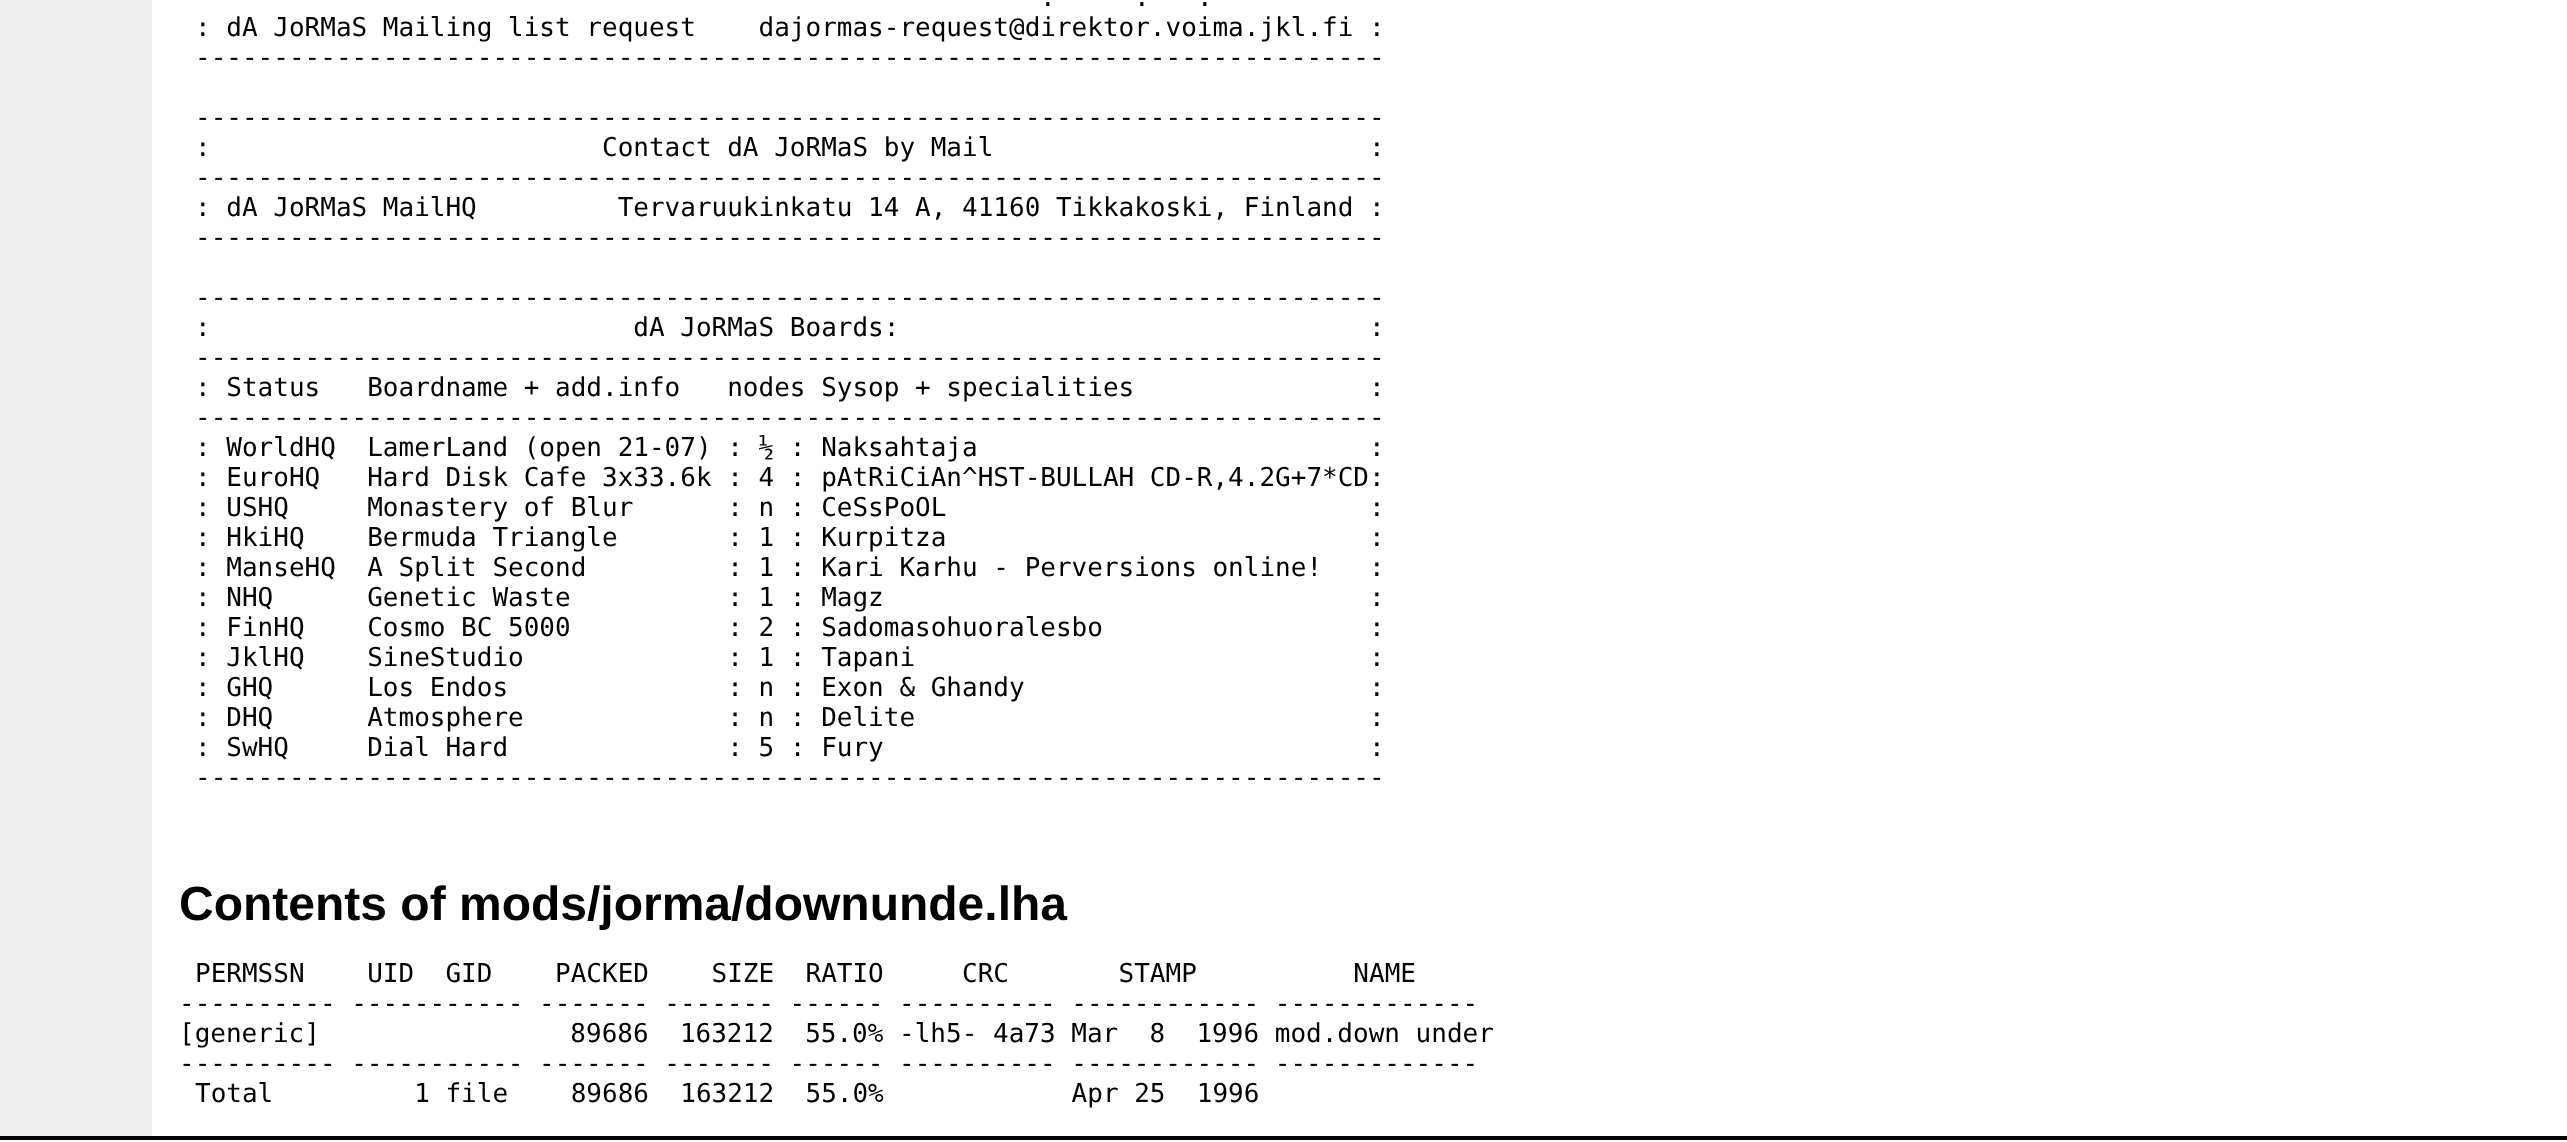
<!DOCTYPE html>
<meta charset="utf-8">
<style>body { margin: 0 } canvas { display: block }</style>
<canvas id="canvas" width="2567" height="1142"></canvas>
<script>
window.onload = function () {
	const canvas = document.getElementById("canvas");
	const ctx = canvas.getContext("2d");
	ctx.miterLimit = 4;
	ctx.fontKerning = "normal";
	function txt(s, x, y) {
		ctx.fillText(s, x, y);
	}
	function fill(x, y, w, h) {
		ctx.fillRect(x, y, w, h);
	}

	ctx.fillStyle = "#FFFFFF";
	fill(0, 0, 2567, 1142);
	ctx.fillStyle = "#EEEEEE";
	fill(0, 0, 152, 1136);
	ctx.fillStyle = "#000000";
	fill(0, 1136, 2567, 4);
	ctx.font = "26px DejaVu Sans Mono";
	txt(".", 1040, 6);
	txt(".", 1134, 6);
	txt(".", 1197, 6);
	txt(": dA JoRMaS Mailing list request    dajormas-request@direktor.voima.jkl.fi :", 195, 36);
	txt("----------------------------------------------------------------------------", 195, 66);
	txt("----------------------------------------------------------------------------", 195, 126);
	txt(":                         Contact dA JoRMaS by Mail                        :", 195, 156);
	txt("----------------------------------------------------------------------------", 195, 186);
	txt(": dA JoRMaS MailHQ         Tervaruukinkatu 14 A, 41160 Tikkakoski, Finland :", 195, 216);
	txt("----------------------------------------------------------------------------", 195, 246);
	txt("----------------------------------------------------------------------------", 195, 306);
	txt(":                           dA JoRMaS Boards:                              :", 195, 336);
	txt("----------------------------------------------------------------------------", 195, 366);
	txt(": Status   Boardname + add.info   nodes Sysop + specialities               :", 195, 396);
	txt("----------------------------------------------------------------------------", 195, 426);
	txt(": WorldHQ  LamerLand (open 21-07) : ½ : Naksahtaja                         :", 195, 456);
	txt(": EuroHQ   Hard Disk Cafe 3x33.6k : 4 : pAtRiCiAn^HST-BULLAH CD-R,4.2G+7*CD:", 195, 486);
	txt(": USHQ     Monastery of Blur      : n : CeSsPoOL                           :", 195, 516);
	txt(": HkiHQ    Bermuda Triangle       : 1 : Kurpitza                           :", 195, 546);
	txt(": ManseHQ  A Split Second         : 1 : Kari Karhu - Perversions online!   :", 195, 576);
	txt(": NHQ      Genetic Waste          : 1 : Magz                               :", 195, 606);
	txt(": FinHQ    Cosmo BC 5000          : 2 : Sadomasohuoralesbo                 :", 195, 636);
	txt(": JklHQ    SineStudio             : 1 : Tapani                             :", 195, 666);
	txt(": GHQ      Los Endos              : n : Exon & Ghandy                      :", 195, 696);
	txt(": DHQ      Atmosphere             : n : Delite                             :", 195, 726);
	txt(": SwHQ     Dial Hard              : 5 : Fury                               :", 195, 756);
	txt("----------------------------------------------------------------------------", 195, 786);
	ctx.font = "bold 48px Liberation Sans";
	txt("Contents of mods/jorma/downunde.lha", 179, 920);
	ctx.font = "26px DejaVu Sans Mono";
	txt("PERMSSN    UID  GID    PACKED    SIZE  RATIO     CRC       STAMP          NAME", 195, 982);
	txt("---------- ----------- ------- ------- ------ ---------- ------------ -------------", 179, 1012);
	txt("[generic]                89686  163212  55.0% -lh5- 4a73 Mar  8  1996 mod.down under", 179, 1042);
	txt("---------- ----------- ------- ------- ------ ---------- ------------ -------------", 179, 1072);
	txt("Total         1 file    89686  163212  55.0%            Apr 25  1996", 195, 1102);
};
</script>
